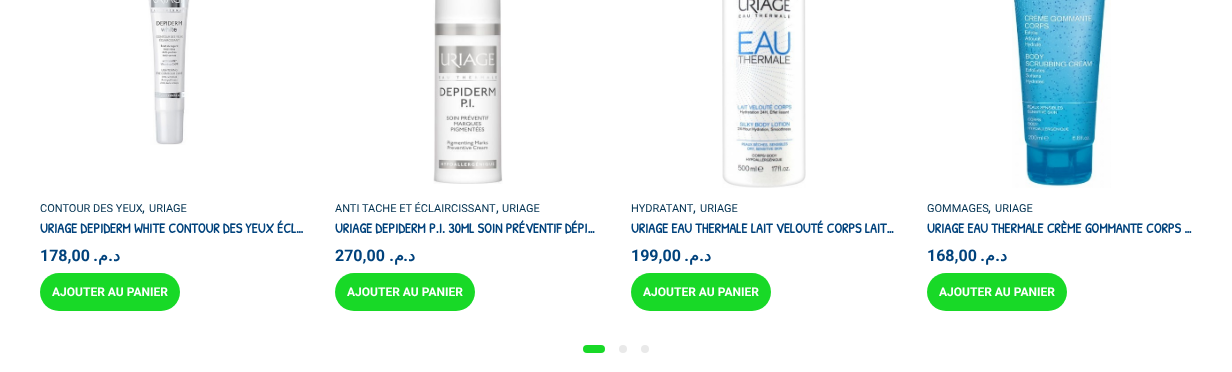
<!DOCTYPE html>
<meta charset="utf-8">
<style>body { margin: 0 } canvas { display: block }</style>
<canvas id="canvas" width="1232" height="372"></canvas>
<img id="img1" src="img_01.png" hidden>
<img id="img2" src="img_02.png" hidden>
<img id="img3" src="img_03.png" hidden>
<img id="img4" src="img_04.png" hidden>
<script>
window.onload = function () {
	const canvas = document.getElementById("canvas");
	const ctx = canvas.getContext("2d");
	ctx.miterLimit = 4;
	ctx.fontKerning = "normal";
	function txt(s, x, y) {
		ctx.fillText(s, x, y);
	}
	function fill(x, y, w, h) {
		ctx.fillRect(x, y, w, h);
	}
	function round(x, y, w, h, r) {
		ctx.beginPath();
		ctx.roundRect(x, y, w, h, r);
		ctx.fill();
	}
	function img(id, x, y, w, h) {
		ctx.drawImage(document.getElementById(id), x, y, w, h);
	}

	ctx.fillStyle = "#FFFFFF";
	fill(0, 0, 1232, 372);
	img("img1", 148, 0, 42, 145);
	ctx.fillStyle = "#18D927";
	round(40, 273, 140, 38, 19);
	img("img2", 433, 0, 70, 184);
	round(335, 273, 140, 38, 19);
	img("img3", 722, 0, 84, 188);
	round(631, 273, 140, 38, 19);
	img("img4", 1012, 0, 99, 188);
	round(927, 273, 140, 38, 19);
	round(583, 345, 22, 8, 4);
	ctx.fillStyle = "#E9E9E9";
	ctx.beginPath();
	ctx.arc(623, 349, 4, 0, Math.PI * 2);
	ctx.fill();
	ctx.beginPath();
	ctx.arc(645, 349, 4, 0, Math.PI * 2);
	ctx.fill();
	ctx.font = "11px Roboto";
	ctx.fillStyle = "#013151";
	txt("CONTOUR DES YEUX", 40, 212);
	ctx.font = "14px Roboto";
	txt(",", 142, 212);
	ctx.font = "11px Roboto";
	txt("URIAGE", 149, 212);
	ctx.font = "bold 14px Patrick Hand";
	ctx.fillStyle = "#00427C";
	txt("URIAGE DEPIDERM WHITE CONTOUR DES YEUX ÉCL…", 40, 233);
	ctx.font = "bold 16px Roboto";
	txt("178,00", 40, 261);
	ctx.direction = "rtl";
	txt(".", 98, 261);
	ctx.font = "bold 16px DejaVu Sans";
	txt("م", 108, 261);
	ctx.font = "bold 16px Roboto";
	txt(".", 113, 261);
	ctx.font = "bold 16px DejaVu Sans";
	txt("د", 120, 261);
	ctx.direction = "ltr";
	ctx.font = "bold 12px Roboto";
	ctx.fillStyle = "#FFFFFF";
	txt("AJOUTER AU PANIER", 52, 296);
	ctx.font = "11px Roboto";
	ctx.fillStyle = "#013151";
	txt("ANTI TACHE ET ÉCLAIRCISSANT", 335, 212);
	ctx.font = "14px Roboto";
	txt(",", 496, 212);
	ctx.font = "11px Roboto";
	txt("URIAGE", 502, 212);
	ctx.font = "bold 14px Patrick Hand";
	ctx.fillStyle = "#00427C";
	txt("URIAGE DEPIDERM P.I. 30ML SOIN PRÉVENTIF DÉPI…", 335, 233);
	ctx.font = "bold 16px Roboto";
	txt("270,00", 335, 261);
	ctx.direction = "rtl";
	txt(".", 394, 261);
	ctx.font = "bold 16px DejaVu Sans";
	txt("م", 404, 261);
	ctx.font = "bold 16px Roboto";
	txt(".", 408, 261);
	ctx.font = "bold 16px DejaVu Sans";
	txt("د", 415, 261);
	ctx.direction = "ltr";
	ctx.font = "bold 12px Roboto";
	ctx.fillStyle = "#FFFFFF";
	txt("AJOUTER AU PANIER", 347, 296);
	ctx.font = "11px Roboto";
	ctx.fillStyle = "#013151";
	txt("HYDRATANT", 631, 212);
	ctx.font = "14px Roboto";
	txt(",", 693, 212);
	ctx.font = "11px Roboto";
	txt("URIAGE", 700, 212);
	ctx.font = "bold 14px Patrick Hand";
	ctx.fillStyle = "#00427C";
	txt("URIAGE EAU THERMALE LAIT VELOUTÉ CORPS LAIT…", 631, 233);
	ctx.font = "bold 16px Roboto";
	txt("199,00", 631, 261);
	ctx.direction = "rtl";
	txt(".", 689, 261);
	ctx.font = "bold 16px DejaVu Sans";
	txt("م", 699, 261);
	ctx.font = "bold 16px Roboto";
	txt(".", 704, 261);
	ctx.font = "bold 16px DejaVu Sans";
	txt("د", 711, 261);
	ctx.direction = "ltr";
	ctx.font = "bold 12px Roboto";
	ctx.fillStyle = "#FFFFFF";
	txt("AJOUTER AU PANIER", 643, 296);
	ctx.font = "11px Roboto";
	ctx.fillStyle = "#013151";
	txt("GOMMAGES", 927, 212);
	ctx.font = "14px Roboto";
	txt(",", 988, 212);
	ctx.font = "11px Roboto";
	txt("URIAGE", 995, 212);
	ctx.font = "bold 14px Patrick Hand";
	ctx.fillStyle = "#00427C";
	txt("URIAGE EAU THERMALE CRÈME GOMMANTE CORPS …", 927, 233);
	ctx.font = "bold 16px Roboto";
	txt("168,00", 927, 261);
	ctx.direction = "rtl";
	txt(".", 985, 261);
	ctx.font = "bold 16px DejaVu Sans";
	txt("م", 995, 261);
	ctx.font = "bold 16px Roboto";
	txt(".", 1000, 261);
	ctx.font = "bold 16px DejaVu Sans";
	txt("د", 1007, 261);
	ctx.direction = "ltr";
	ctx.font = "bold 12px Roboto";
	ctx.fillStyle = "#FFFFFF";
	txt("AJOUTER AU PANIER", 939, 296);
};
</script>
